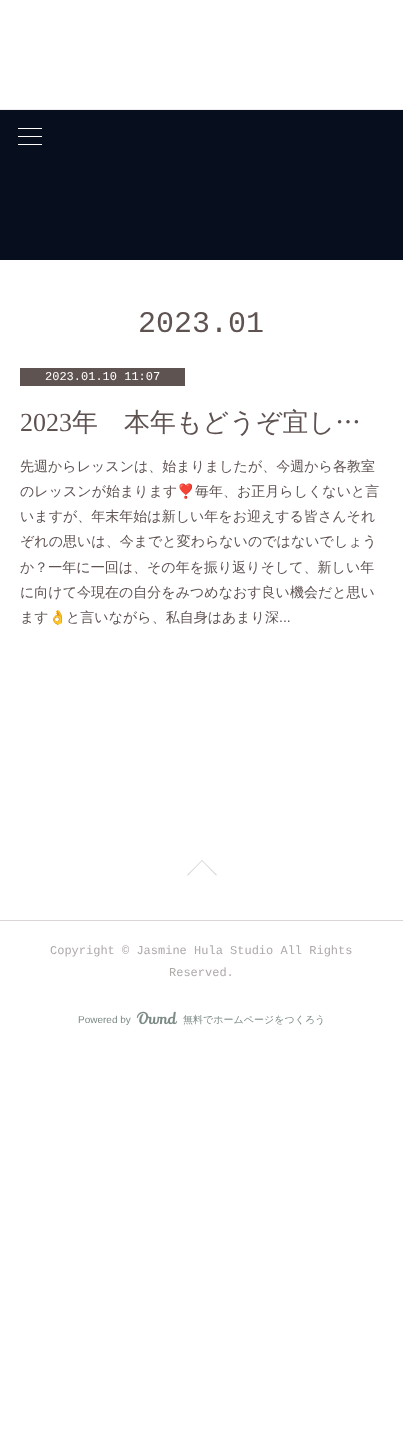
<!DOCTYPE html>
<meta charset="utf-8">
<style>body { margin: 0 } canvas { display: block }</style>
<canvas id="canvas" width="403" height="1435"></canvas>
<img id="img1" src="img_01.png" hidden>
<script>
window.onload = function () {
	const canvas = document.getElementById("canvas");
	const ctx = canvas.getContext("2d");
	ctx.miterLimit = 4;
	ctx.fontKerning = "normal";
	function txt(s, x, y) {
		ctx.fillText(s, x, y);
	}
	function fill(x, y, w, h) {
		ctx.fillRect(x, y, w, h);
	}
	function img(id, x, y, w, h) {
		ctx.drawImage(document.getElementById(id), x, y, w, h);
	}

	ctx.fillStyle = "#FFFFFF";
	fill(0, 0, 403, 1435);
	ctx.fillStyle = "#EEEEEE";
	fill(0, 109, 403, 1);
	ctx.fillStyle = "#070F1F";
	fill(0, 110, 403, 150);
	ctx.fillStyle = "#FFFFFF";
	fill(18, 128, 24, 1);
	fill(18, 136, 24, 1);
	fill(18, 144, 24, 1);
	ctx.fillStyle = "#5F5352";
	fill(20, 368, 165, 18);
	ctx.fillStyle = "#D9D5D4";
	ctx.beginPath();
	ctx.moveTo(187, 875);
	ctx.lineTo(202, 860);
	ctx.lineTo(202.5, 860.5);
	ctx.lineTo(188, 875.5);
	ctx.closePath();
	ctx.fill();
	ctx.beginPath();
	ctx.moveTo(201.5, 860.5);
	ctx.lineTo(202, 860);
	ctx.lineTo(217, 875);
	ctx.lineTo(216, 875.5);
	ctx.closePath();
	ctx.fill();
	fill(0, 920, 403, 1);
	img("img1", 136, 1011, 42, 14);
	ctx.font = "30px Liberation Mono";
	ctx.fillStyle = "#5F5352";
	txt("2023.01", 138, 332);
	ctx.font = "12px Liberation Mono";
	ctx.fillStyle = "#FFFFFF";
	txt("2023.01.10 11:07", 45, 380);
	ctx.font = "26px Liberation Serif";
	ctx.fillStyle = "#5F5352";
	txt("2023", 20, 431);
	ctx.font = "500 26px WenQuanYi Zen Hei";
	txt("年　本年もどうぞ宜し…", 72, 431);
	ctx.font = "500 14px WenQuanYi Zen Hei";
	txt("先週からレッスンは、始まりましたが、今週から各教室", 20, 471);
	txt("のレッスンが始まります", 20, 496);
	ctx.font = "14px Noto Color Emoji";
	txt("❣️", 177, 496);
	ctx.font = "500 14px WenQuanYi Zen Hei";
	txt("毎年、お正月らしくないと言", 195, 496);
	txt("いますが、年末年始は新しい年をお迎えする皆さんそれ", 20, 521);
	txt("ぞれの思いは、今までと変わらないのではないでしょう", 20, 546);
	txt("か？一年に一回は、その年を振り返りそして、新しい年", 20, 572);
	txt("に向けて今現在の自分をみつめなおす良い機会だと思い", 20, 597);
	txt("ます", 20, 622);
	ctx.font = "14px Noto Color Emoji";
	txt("👌", 49, 622);
	ctx.font = "500 14px WenQuanYi Zen Hei";
	txt("と言いながら、私自身はあまり深", 66, 622);
	ctx.font = "14px Liberation Sans";
	txt("...", 279, 622);
	ctx.font = "12px Liberation Mono";
	ctx.fillStyle = "#AFA9A9";
	txt("Copyright © Jasmine Hula Studio All Rights", 50, 954);
	txt("Reserved.", 169, 976);
	ctx.font = "10px Liberation Sans";
	ctx.fillStyle = "#7D8B88";
	txt("Powered by", 78, 1023);
	ctx.font = "500 10px WenQuanYi Zen Hei";
	txt("無料でホームページをつくろう", 183, 1023);
};
</script>
